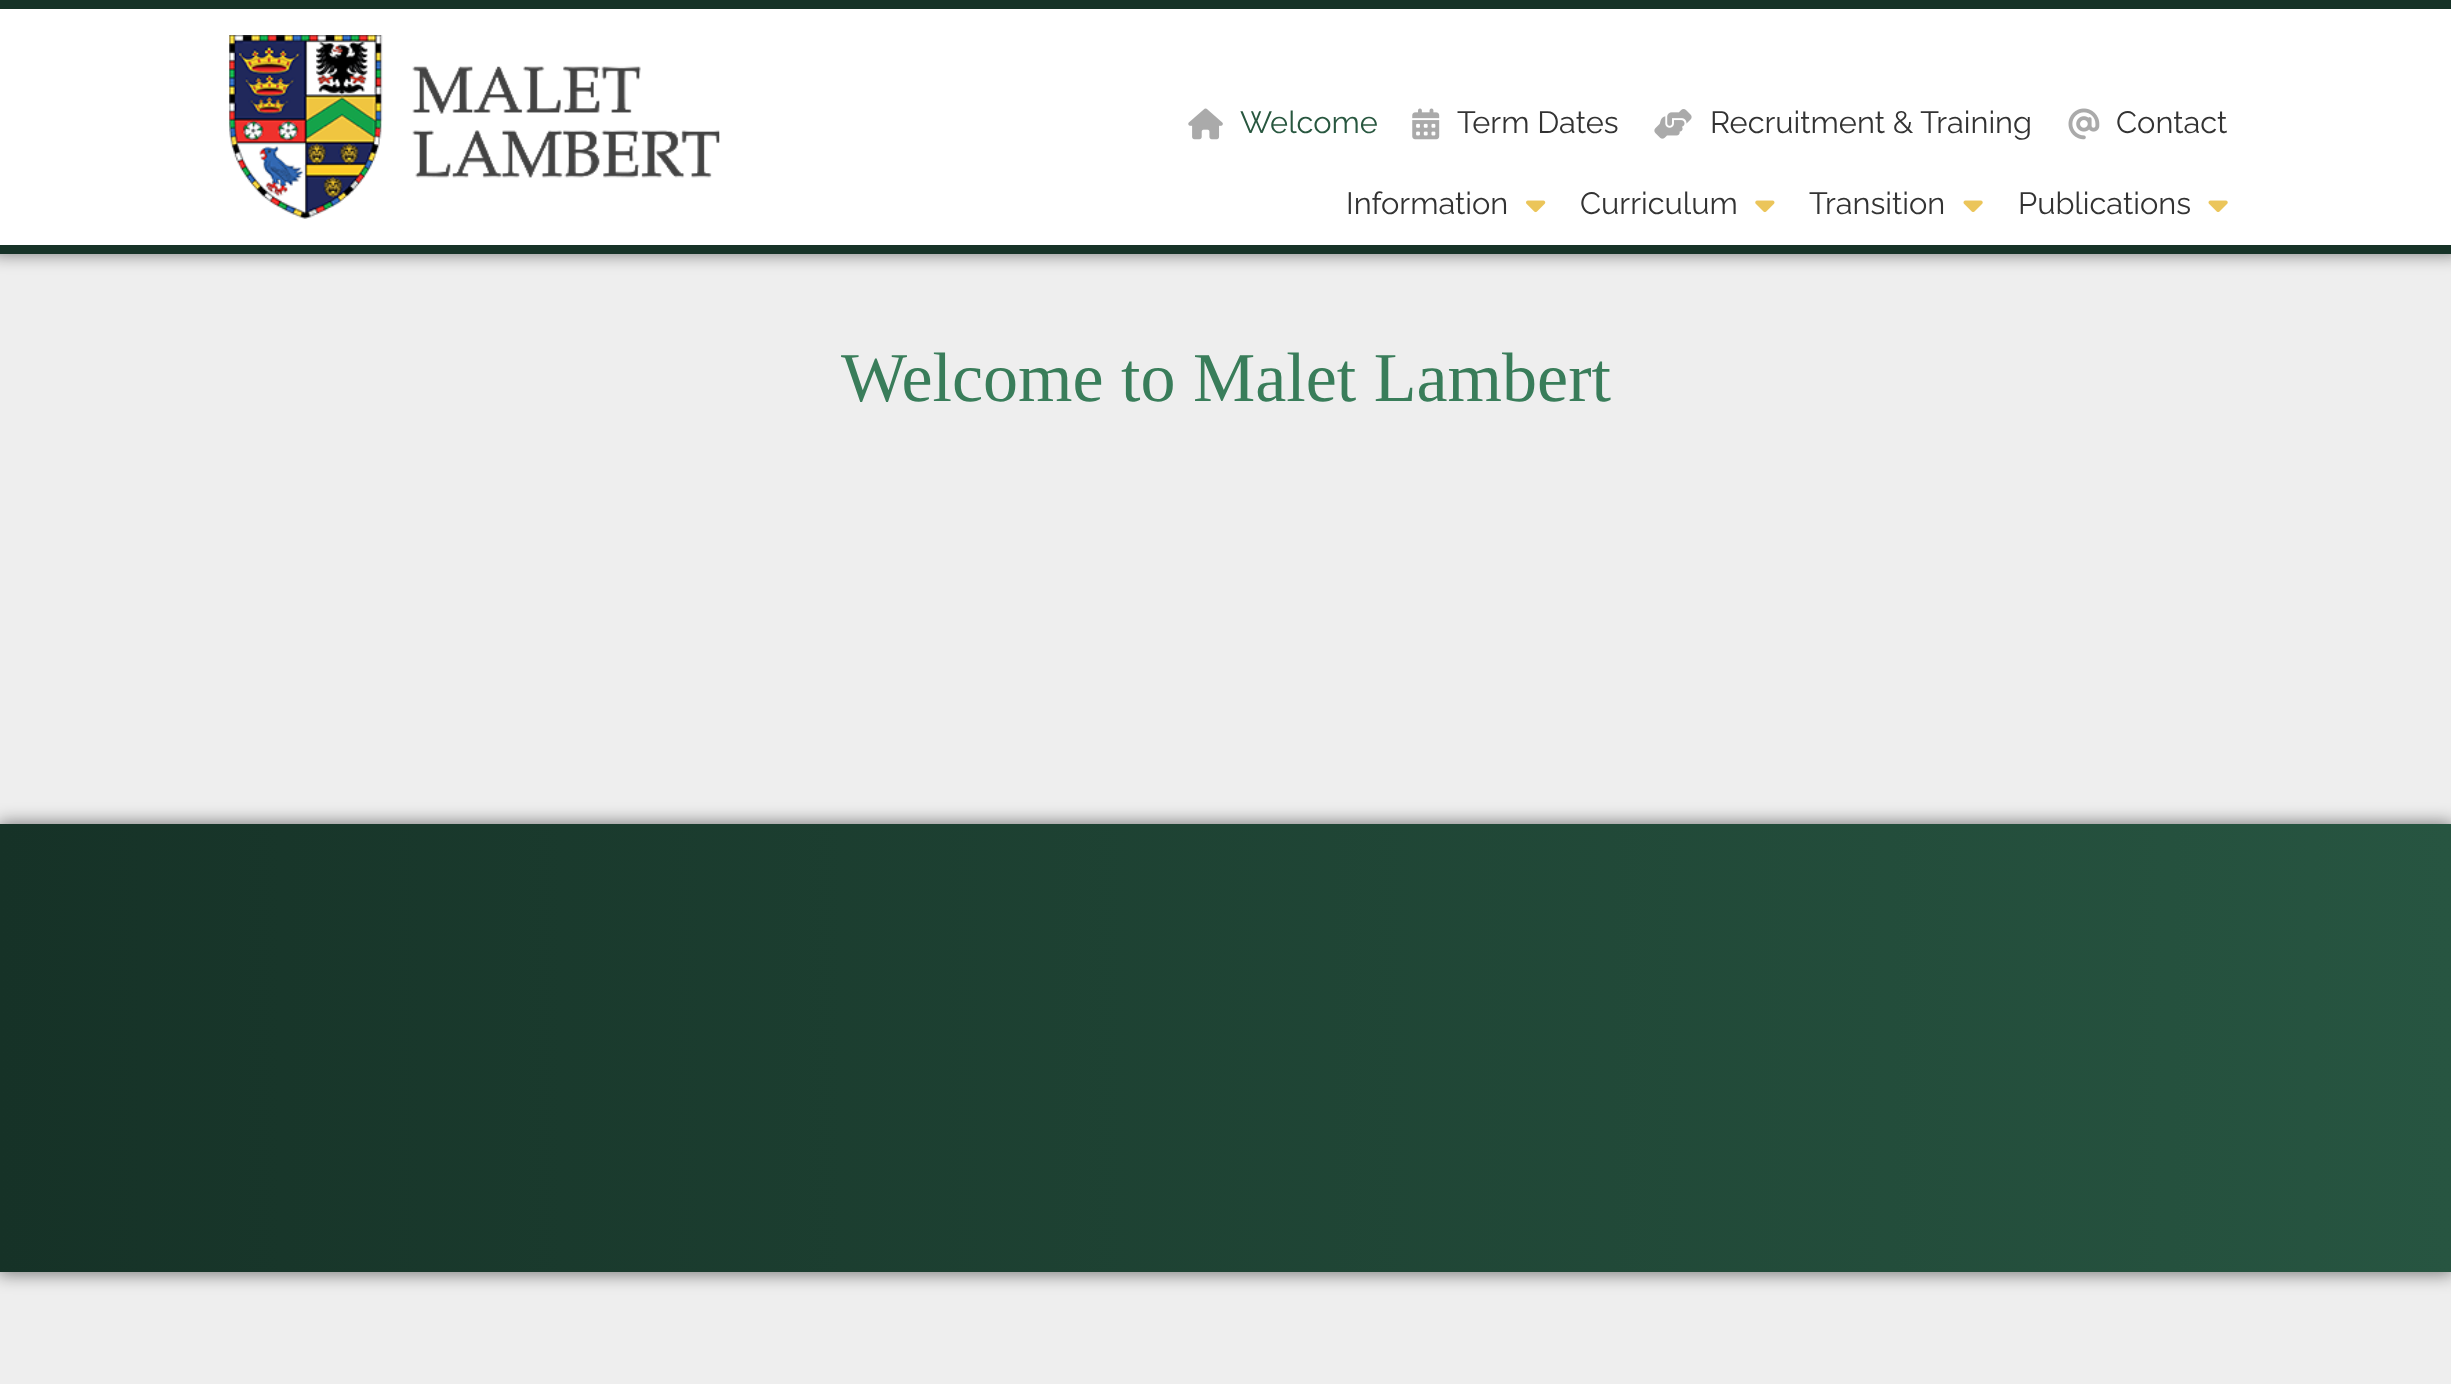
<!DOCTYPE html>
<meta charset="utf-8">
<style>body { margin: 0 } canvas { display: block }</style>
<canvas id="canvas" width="2451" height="1384"></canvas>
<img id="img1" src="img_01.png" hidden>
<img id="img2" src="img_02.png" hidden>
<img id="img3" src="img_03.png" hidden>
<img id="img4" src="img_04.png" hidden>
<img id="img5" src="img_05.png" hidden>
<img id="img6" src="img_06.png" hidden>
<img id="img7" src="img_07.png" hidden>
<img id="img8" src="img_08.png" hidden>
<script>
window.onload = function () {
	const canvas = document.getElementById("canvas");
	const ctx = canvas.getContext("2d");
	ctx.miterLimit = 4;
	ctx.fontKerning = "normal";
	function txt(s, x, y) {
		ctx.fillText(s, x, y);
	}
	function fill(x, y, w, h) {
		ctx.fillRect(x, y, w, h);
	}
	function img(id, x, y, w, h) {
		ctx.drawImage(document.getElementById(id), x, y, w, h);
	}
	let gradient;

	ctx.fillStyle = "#EEEEEE";
	fill(0, 0, 2451, 1384);
	ctx.fillStyle = "rgba(0, 0, 0, 0.5)";
	ctx.filter = "blur(9px)";
	ctx.beginPath();
	ctx.rect(-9, -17, 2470, 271);
	ctx.fill();
	ctx.filter = "none";
	ctx.fillStyle = "#FFFFFF";
	fill(0, 9, 2451, 236);
	ctx.fillStyle = "#163227";
	fill(0, 0, 2451, 9);
	fill(0, 245, 2451, 9);
	img("img1", 229, 35, 491, 184);
	img("img2", 1188, 108, 35, 32);
	img("img3", 1412, 108, 28, 32);
	img("img4", 1654, 109, 38, 30);
	img("img5", 2068, 108, 32, 32);
	img("img6", 1526, 200, 20, 13);
	img("img7", 1755, 200, 20, 13);
	img("img8", 1963, 200, 20, 12);
	img("img8", 2208, 200, 20, 12);
	ctx.fillStyle = "rgba(0, 0, 0, 0.5)";
	ctx.filter = "blur(9px)";
	ctx.beginPath();
	ctx.rect(-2, 823, 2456, 451);
	ctx.fill();
	ctx.filter = "none";
	gradient = ctx.createLinearGradient(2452, 1048, 0, 1048);
	gradient.addColorStop(0, "#275541");
	gradient.addColorStop(1, "#163227");
	ctx.fillStyle = gradient;
	fill(0, 824, 2451, 448);
	ctx.font = "30.75px Raleway";
	ctx.fillStyle = "#28573F";
	txt("Welcome", 1240, 133);
	ctx.fillStyle = "#333333";
	txt("Term Dates", 1457, 133);
	txt("Recruitment & Training", 1710, 133);
	txt("Contact", 2116, 133);
	txt("Information", 1346, 214);
	txt("Curriculum", 1580, 214);
	txt("Transition", 1809, 214);
	txt("Publications", 2018, 214);
	ctx.font = "70px Liberation Serif";
	ctx.fillStyle = "#397D5A";
	txt("Welcome to Malet Lambert", 841, 401);
};
</script>
